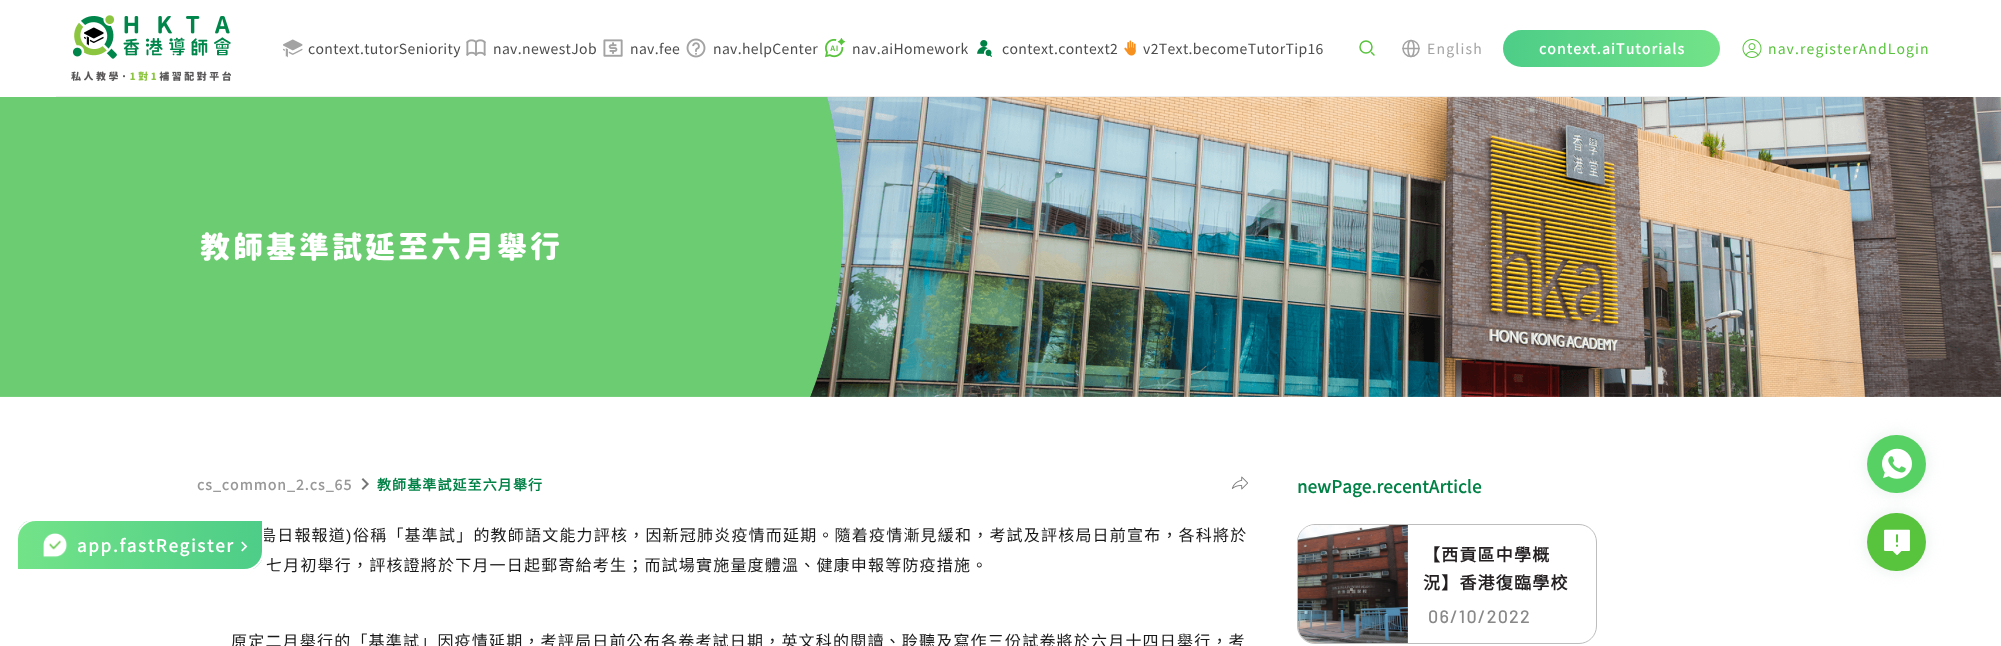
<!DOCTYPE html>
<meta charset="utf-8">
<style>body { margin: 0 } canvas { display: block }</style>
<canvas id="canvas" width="2001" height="646"></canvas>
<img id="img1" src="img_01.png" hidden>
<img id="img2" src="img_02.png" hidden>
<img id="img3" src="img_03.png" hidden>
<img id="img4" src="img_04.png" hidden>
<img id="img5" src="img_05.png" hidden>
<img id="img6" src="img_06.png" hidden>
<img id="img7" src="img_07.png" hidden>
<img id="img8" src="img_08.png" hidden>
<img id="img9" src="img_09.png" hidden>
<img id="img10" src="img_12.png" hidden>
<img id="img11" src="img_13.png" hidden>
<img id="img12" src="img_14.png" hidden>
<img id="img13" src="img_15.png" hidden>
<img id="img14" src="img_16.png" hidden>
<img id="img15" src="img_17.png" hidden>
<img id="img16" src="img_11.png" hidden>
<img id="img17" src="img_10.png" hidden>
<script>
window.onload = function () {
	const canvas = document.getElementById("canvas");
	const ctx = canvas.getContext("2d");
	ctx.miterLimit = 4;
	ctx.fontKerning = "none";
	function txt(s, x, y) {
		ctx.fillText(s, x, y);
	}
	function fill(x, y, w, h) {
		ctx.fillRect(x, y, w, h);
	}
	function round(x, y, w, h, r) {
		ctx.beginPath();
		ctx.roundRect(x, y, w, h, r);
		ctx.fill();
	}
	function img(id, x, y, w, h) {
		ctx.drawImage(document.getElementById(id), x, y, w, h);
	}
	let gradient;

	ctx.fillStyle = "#FFFFFF";
	fill(0, 0, 2001, 646);
	ctx.fillStyle = "#EFEFEF";
	fill(56, 96, 1890, 1);
	img("img1", 71, 15, 160, 66);
	img("img2", 283, 39, 20, 19);
	img("img3", 466, 39, 20, 17);
	img("img4", 603, 39, 20, 18);
	img("img5", 686, 38, 20, 20);
	img("img6", 825, 38, 21, 20);
	img("img7", 977, 40, 15, 17);
	img("img8", 1124, 40, 12, 16);
	ctx.beginPath();
	ctx.arc(1366, 47, 6, 0, Math.PI * 2);
	ctx.strokeStyle = "#58C33C";
	ctx.lineWidth = 1.5;
	ctx.stroke();
	ctx.beginPath();
	ctx.moveTo(1374, 55);
	ctx.lineTo(1371.5, 52.5);
	ctx.lineCap = "round";
	ctx.stroke();
	ctx.beginPath();
	ctx.arc(1411, 48.5, 8, 0, Math.PI * 2);
	ctx.strokeStyle = "#A3A3A3";
	ctx.stroke();
	ctx.beginPath();
	ctx.ellipse(1411, 48.5, 3, 8, 0, 0, Math.PI * 2);
	ctx.stroke();
	ctx.beginPath();
	ctx.moveTo(1403, 48.5);
	ctx.lineTo(1419, 48.5);
	ctx.stroke();
	gradient = ctx.createLinearGradient(1503, 49, 1720, 48);
	gradient.addColorStop(0, "#4DCD88");
	gradient.addColorStop(1, "#73E388");
	ctx.fillStyle = gradient;
	round(1503, 30, 217, 37, 18.5);
	img("img9", 1742, 39, 20, 19);
	img("img10", 0, 97, 2001, 300);
	img("img11", 361, 478, 8, 12);
	img("img12", 1231, 476, 17, 14);
	ctx.beginPath();
	ctx.roundRect(1297.5, 524.5, 299, 119, 17.5);
	ctx.strokeStyle = "#BDBDBD";
	ctx.lineWidth = 1;
	ctx.stroke();
	img("img13", 1298, 525, 110, 118);
	ctx.fillStyle = "rgba(204, 222, 214, 0.5)";
	ctx.filter = "blur(8px)";
	ctx.beginPath();
	ctx.roundRect(1867, 435, 59, 58, 29);
	ctx.fill();
	ctx.filter = "none";
	ctx.fillStyle = "#57D163";
	round(1867, 435, 59, 58, 29);
	img("img14", 1882, 448, 30, 31);
	ctx.fillStyle = "rgba(204, 222, 214, 0.5)";
	ctx.filter = "blur(8px)";
	ctx.beginPath();
	ctx.roundRect(1867, 513, 59, 58, 29);
	ctx.fill();
	ctx.filter = "none";
	ctx.fillStyle = "#58C33C";
	round(1867, 513, 59, 58, 29);
	img("img15", 1884, 529, 26, 26);
	ctx.letterSpacing = "0.35px";
	ctx.font = "14px Noto Sans SC";
	ctx.fillStyle = "#4D4D4D";
	txt("context.tutorSeniority", 308, 54);
	txt("nav.newestJob", 493, 54);
	txt("nav.fee", 630, 54);
	txt("nav.helpCenter", 713, 54);
	txt("nav.aiHomework", 852, 54);
	txt("context.context2", 1002, 54);
	txt("v2Text.becomeTutorTip16", 1143, 54);
	ctx.letterSpacing = "1.2px";
	ctx.fillStyle = "#A3A3A3";
	txt("English", 1427, 54);
	ctx.font = "bold 14px Noto Sans SC";
	ctx.fillStyle = "#FFFFFF";
	txt("context.aiTutorials", 1539, 54);
	ctx.letterSpacing = "1.1px";
	ctx.font = "14px Noto Sans SC";
	ctx.fillStyle = "#58C33C";
	txt("nav.registerAndLogin", 1768, 54);
	ctx.letterSpacing = "3px";
	ctx.font = "900 30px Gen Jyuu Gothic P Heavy";
	ctx.fillStyle = "#FFFFFF";
	txt("教師基準試延至六月舉行", 200, 258);
	ctx.letterSpacing = "1.1px";
	ctx.font = "bold 14px Noto Sans SC";
	ctx.fillStyle = "#989898";
	txt("cs_common_2.cs_65", 197, 490);
	ctx.fillStyle = "#008146";
	txt("教師基準試延至六月舉行", 377, 490);
	ctx.letterSpacing = "1.2px";
	ctx.font = "16px Noto Sans CJK TC";
	ctx.fillStyle = "#191919";
	txt("島日報報道", 260, 541);
	ctx.save();
	ctx.beginPath();
	ctx.roundRect(16, 519, 248, 52, [20, 0, 20, 0]);
	ctx.clip();
	gradient = ctx.createLinearGradient(18, 545, 262, 545);
	gradient.addColorStop(0, "#73E388");
	gradient.addColorStop(1, "#4DCD88");
	ctx.fillStyle = gradient;
	fill(18, 521, 244, 48);
	ctx.restore();
	ctx.beginPath();
	ctx.roundRect(17, 520, 246, 50, [19, 0, 19, 0]);
	ctx.strokeStyle = "#FFFFFF";
	ctx.lineWidth = 2;
	ctx.stroke();
	img("img16", 241, 541, 7, 11);
	ctx.letterSpacing = "1.75px";
	ctx.font = "bold 17px Noto Sans SC";
	ctx.fillStyle = "#FFFFFF";
	txt("app.fastRegister", 77, 552);
	img("img17", 43, 533, 25, 25);
	ctx.letterSpacing = "1.2px";
	ctx.font = "16px Liberation Sans";
	ctx.fillStyle = "#191919";
	txt(")", 346, 541);
	ctx.font = "16px Noto Sans CJK TC";
	txt("俗稱「基準試」的教師語文能力評核，因新冠肺炎疫情而延期。隨着疫情漸見緩和，考試及評核局日前宣布，各科將於", 353, 541);
	txt("七月初舉行，評核證將於下月一日起郵寄給考生；而試場實施量度體溫、健康申報等防疫措施。", 266, 571);
	txt("原定二月舉行的「基準試」因疫情延期，考評局日前公布各卷考試日期，英文科的閱讀、聆聽及寫作三份試卷將於六月十四日舉行，考", 231, 647);
	ctx.letterSpacing = "0.25px";
	ctx.font = "bold 17px Noto Sans SC";
	ctx.fillStyle = "#008146";
	txt("newPage.recentArticle", 1297, 493);
	ctx.letterSpacing = "1.2px";
	ctx.fillStyle = "#231F20";
	txt("【西貢區中學概", 1423, 561);
	txt("況】香港復臨學校", 1423, 589);
	ctx.font = "500 18px Barlow";
	ctx.fillStyle = "#888888";
	txt("06/10/2022", 1428, 623);
};
</script>
